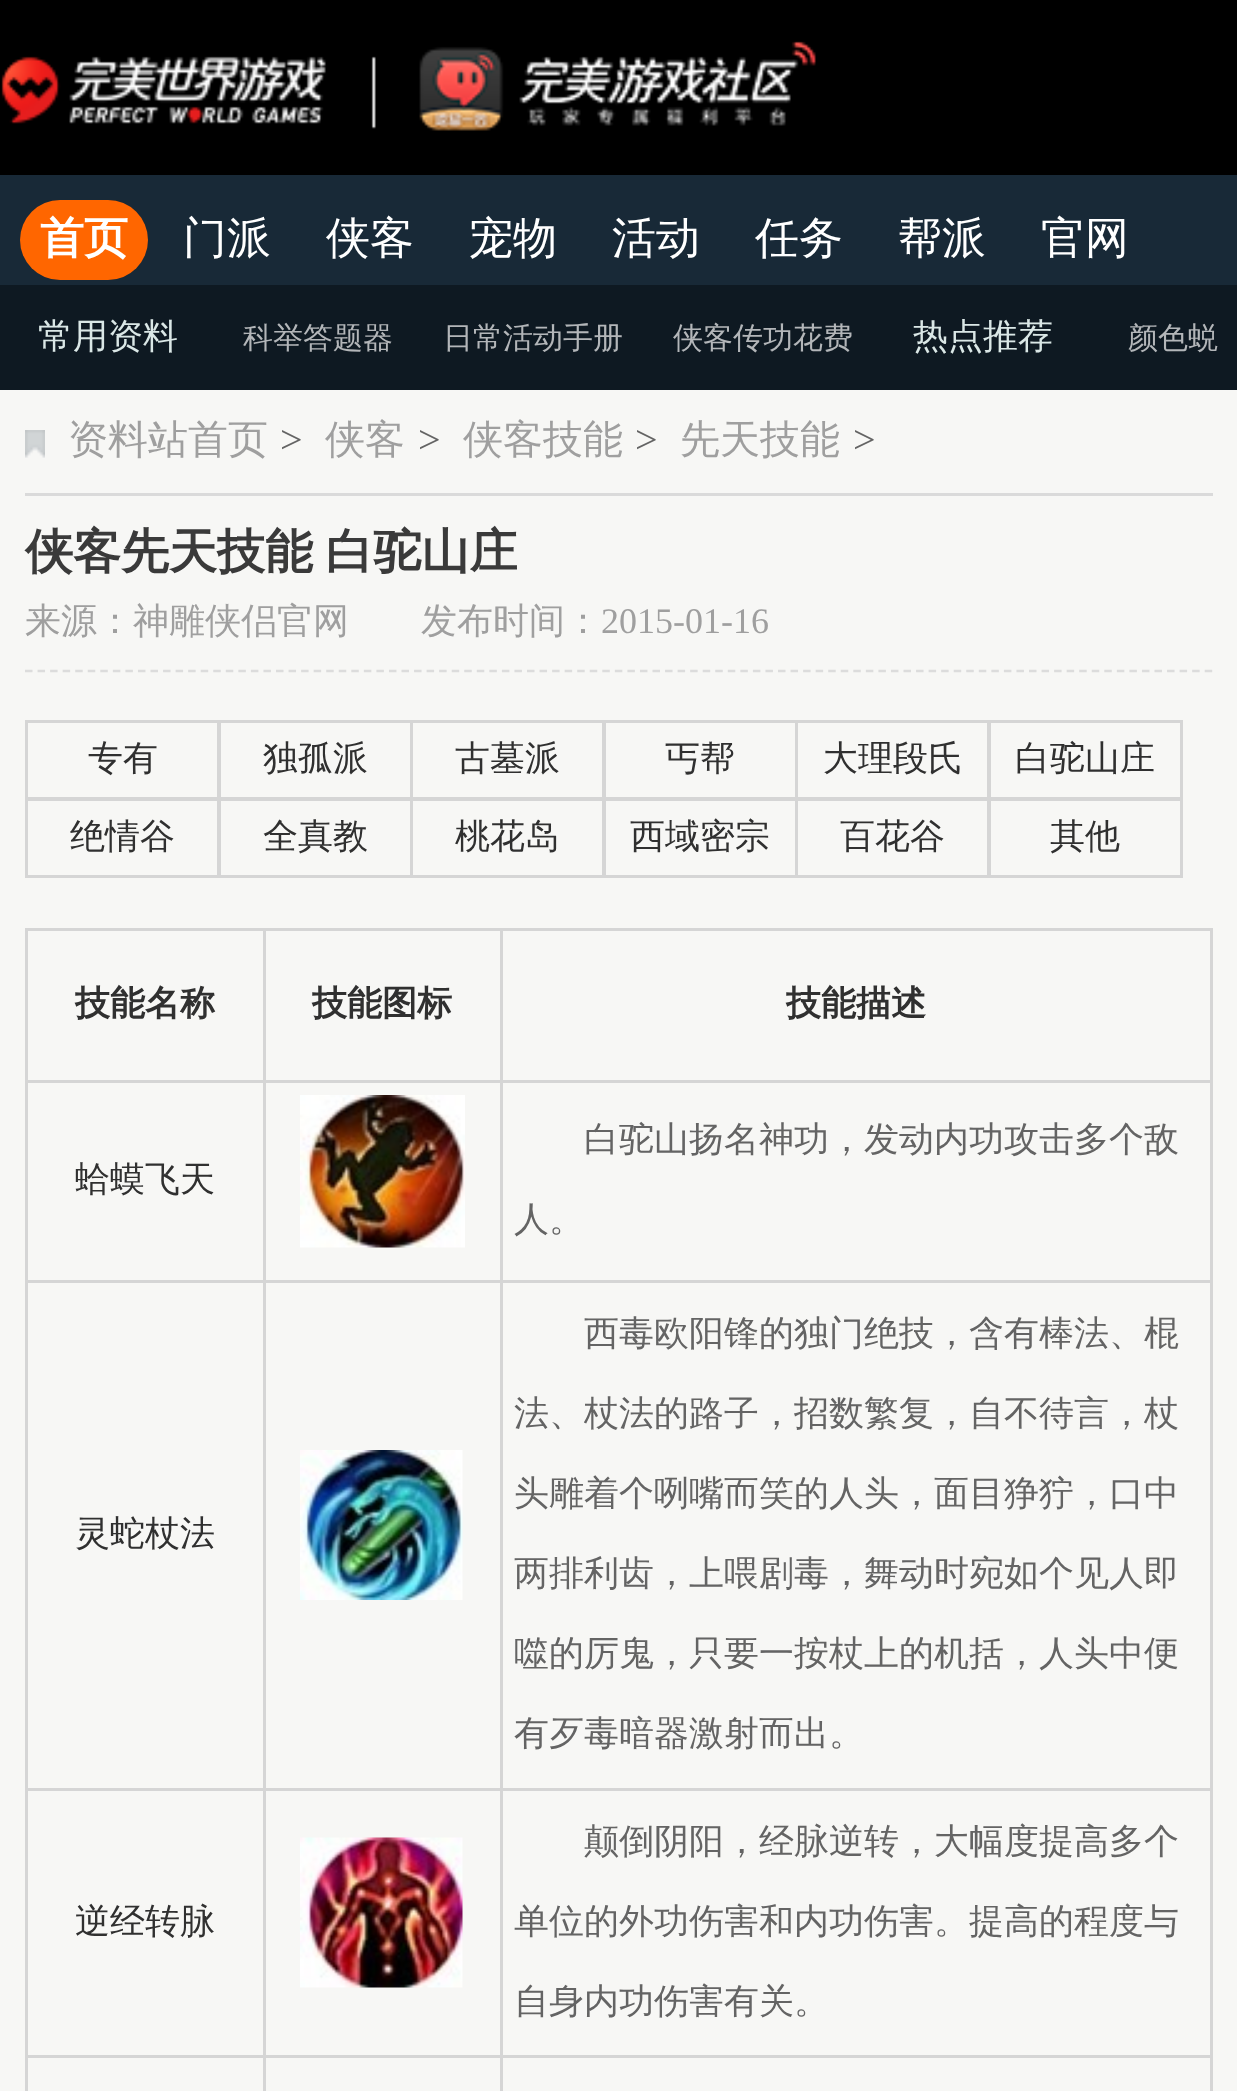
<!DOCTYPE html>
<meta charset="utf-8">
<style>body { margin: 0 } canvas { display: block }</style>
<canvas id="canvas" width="1237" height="2091"></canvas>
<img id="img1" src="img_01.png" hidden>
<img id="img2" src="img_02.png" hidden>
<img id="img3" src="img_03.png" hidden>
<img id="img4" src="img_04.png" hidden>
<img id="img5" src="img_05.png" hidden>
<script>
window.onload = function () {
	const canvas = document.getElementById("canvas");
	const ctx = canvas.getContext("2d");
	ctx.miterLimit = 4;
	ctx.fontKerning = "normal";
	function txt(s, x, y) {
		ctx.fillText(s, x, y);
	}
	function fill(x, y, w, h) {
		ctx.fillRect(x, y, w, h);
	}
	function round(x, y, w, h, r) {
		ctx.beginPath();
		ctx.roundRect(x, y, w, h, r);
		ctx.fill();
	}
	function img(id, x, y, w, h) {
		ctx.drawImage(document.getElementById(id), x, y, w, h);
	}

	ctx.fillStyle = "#182937";
	fill(0, 0, 1237, 2091);
	ctx.fillStyle = "#000000";
	fill(0, 0, 1237, 175);
	img("img1", 1, 41, 815, 90);
	ctx.fillStyle = "#FF6600";
	round(20, 200, 128, 80, 40);
	ctx.fillStyle = "#0E1922";
	fill(0, 285, 1237, 105);
	ctx.fillStyle = "#F7F7F5";
	fill(0, 390, 1237, 1701);
	img("img2", 25, 430, 20, 28);
	ctx.fillStyle = "#DADADA";
	fill(25, 493, 1188, 3);
	ctx.beginPath();
	ctx.moveTo(25, 671);
	ctx.lineTo(1212.5, 671);
	ctx.strokeStyle = "#DCDCDC";
	ctx.lineWidth = 2.5;
	ctx.setLineDash([7.5, 5.05]);
	ctx.stroke();
	ctx.strokeStyle = "#D5D5D5";
	ctx.lineWidth = 3;
	ctx.setLineDash([]);
	ctx.strokeRect(26.5, 721.5, 192, 77);
	ctx.strokeRect(219.5, 721.5, 192, 77);
	ctx.strokeRect(411.5, 721.5, 192, 77);
	ctx.strokeRect(604.5, 721.5, 192, 77);
	ctx.strokeRect(796.5, 721.5, 192, 77);
	ctx.strokeRect(989.5, 721.5, 192, 77);
	ctx.strokeRect(26.5, 799.5, 192, 77);
	ctx.strokeRect(219.5, 799.5, 192, 77);
	ctx.strokeRect(411.5, 799.5, 192, 77);
	ctx.strokeRect(604.5, 799.5, 192, 77);
	ctx.strokeRect(796.5, 799.5, 192, 77);
	ctx.strokeRect(989.5, 799.5, 192, 77);
	ctx.fillStyle = "#D5D5D5";
	fill(500, 928, 713, 3);
	fill(500, 1080, 713, 3);
	fill(500, 1280, 713, 3);
	fill(500, 1788, 713, 3);
	fill(500, 2055, 713, 3);
	fill(500, 2055, 3, 36);
	fill(263, 2055, 240, 3);
	fill(500, 1788, 3, 270);
	fill(263, 1788, 240, 3);
	fill(500, 1280, 3, 510);
	fill(263, 1280, 240, 3);
	fill(500, 1080, 3, 203);
	fill(263, 1080, 240, 3);
	fill(500, 928, 3, 155);
	fill(263, 928, 240, 3);
	fill(263, 2055, 3, 36);
	fill(25, 2055, 240, 3);
	fill(263, 1788, 3, 270);
	fill(25, 1788, 240, 3);
	fill(263, 1280, 3, 510);
	fill(25, 1280, 240, 3);
	fill(263, 1080, 3, 203);
	fill(25, 1080, 240, 3);
	fill(263, 928, 3, 155);
	fill(25, 928, 240, 3);
	fill(25, 2055, 3, 36);
	fill(25, 1788, 3, 270);
	fill(25, 1280, 3, 510);
	fill(25, 1080, 3, 203);
	fill(25, 928, 3, 155);
	fill(1210, 2055, 3, 36);
	fill(1210, 1788, 3, 270);
	fill(1210, 1280, 3, 510);
	fill(1210, 1080, 3, 203);
	fill(1210, 928, 3, 155);
	img("img3", 300, 1095, 165, 153);
	img("img4", 300, 1450, 163, 150);
	img("img5", 300, 1837, 163, 151);
	ctx.font = "bold 44px WenQuanYi Zen Hei";
	ctx.fillStyle = "#FFFFFF";
	txt("首页", 40, 253);
	ctx.font = "500 44px WenQuanYi Zen Hei";
	txt("门派", 183, 253);
	txt("侠客", 326, 253);
	txt("宠物", 469, 253);
	txt("活动", 612, 253);
	txt("任务", 755, 253);
	txt("帮派", 898, 253);
	txt("官网", 1041, 253);
	ctx.font = "500 35px WenQuanYi Zen Hei";
	ctx.fillStyle = "#DAE7E6";
	txt("常用资料", 38, 348);
	ctx.font = "500 30px WenQuanYi Zen Hei";
	ctx.fillStyle = "#B3B6B9";
	txt("科举答题器", 243, 348);
	txt("日常活动手册", 443, 348);
	txt("侠客传功花费", 673, 348);
	ctx.font = "500 35px WenQuanYi Zen Hei";
	ctx.fillStyle = "#DAE7E6";
	txt("热点推荐", 913, 348);
	ctx.font = "500 30px WenQuanYi Zen Hei";
	ctx.fillStyle = "#B3B6B9";
	txt("颜色蜕", 1128, 348);
	ctx.font = "500 40px WenQuanYi Zen Hei";
	ctx.fillStyle = "#9F9F9F";
	txt("资料站首页", 68, 453);
	ctx.font = "40px Liberation Serif";
	ctx.fillStyle = "#646464";
	txt(">", 280, 453);
	ctx.font = "500 40px WenQuanYi Zen Hei";
	ctx.fillStyle = "#9F9F9F";
	txt("侠客", 325, 453);
	ctx.font = "40px Liberation Serif";
	ctx.fillStyle = "#646464";
	txt(">", 418, 453);
	ctx.font = "500 40px WenQuanYi Zen Hei";
	ctx.fillStyle = "#9F9F9F";
	txt("侠客技能", 463, 453);
	ctx.font = "40px Liberation Serif";
	ctx.fillStyle = "#646464";
	txt(">", 635, 453);
	ctx.font = "500 40px WenQuanYi Zen Hei";
	ctx.fillStyle = "#9F9F9F";
	txt("先天技能", 680, 453);
	ctx.font = "40px Liberation Serif";
	ctx.fillStyle = "#646464";
	txt(">", 853, 453);
	ctx.wordSpacing = "-2px";
	ctx.font = "bold 48px WenQuanYi Zen Hei";
	ctx.fillStyle = "#3A3A3A";
	txt("侠客先天技能 白驼山庄", 25, 568);
	ctx.wordSpacing = "0px";
	ctx.font = "500 36px WenQuanYi Zen Hei";
	ctx.fillStyle = "#9F9F9F";
	txt("来源：神雕侠侣官网", 25, 633);
	txt("发布时间：", 421, 633);
	ctx.font = "36px Liberation Serif";
	txt("2015-01-16", 601, 633);
	ctx.font = "500 35px WenQuanYi Zen Hei";
	ctx.fillStyle = "#303030";
	txt("专有", 88, 770);
	txt("独孤派", 263, 770);
	txt("古墓派", 455, 770);
	txt("丐帮", 665, 770);
	txt("大理段氏", 823, 770);
	txt("白驼山庄", 1015, 770);
	txt("绝情谷", 70, 848);
	txt("全真教", 263, 848);
	txt("桃花岛", 455, 848);
	txt("西域密宗", 630, 848);
	txt("百花谷", 840, 848);
	txt("其他", 1050, 848);
	ctx.font = "bold 35px WenQuanYi Zen Hei";
	txt("技能名称", 75, 1015);
	txt("技能图标", 312, 1015);
	txt("技能描述", 786, 1015);
	ctx.font = "500 35px WenQuanYi Zen Hei";
	txt("蛤蟆飞天", 75, 1191);
	ctx.fillStyle = "#646464";
	txt("白驼山扬名神功，发动内功攻击多个敌", 584, 1151);
	txt("人。", 514, 1231);
	ctx.fillStyle = "#303030";
	txt("灵蛇杖法", 75, 1545);
	ctx.fillStyle = "#646464";
	txt("西毒欧阳锋的独门绝技，含有棒法、棍", 584, 1345);
	txt("法、杖法的路子，招数繁复，自不待言，杖", 514, 1425);
	txt("头雕着个咧嘴而笑的人头，面目狰狞，口中", 514, 1505);
	txt("两排利齿，上喂剧毒，舞动时宛如个见人即", 514, 1585);
	txt("噬的厉鬼，只要一按杖上的机括，人头中便", 514, 1665);
	txt("有歹毒暗器激射而出。", 514, 1745);
	ctx.fillStyle = "#303030";
	txt("逆经转脉", 75, 1933);
	ctx.fillStyle = "#646464";
	txt("颠倒阴阳，经脉逆转，大幅度提高多个", 584, 1853);
	txt("单位的外功伤害和内功伤害。提高的程度与", 514, 1933);
	txt("自身内功伤害有关。", 514, 2013);
};
</script>
